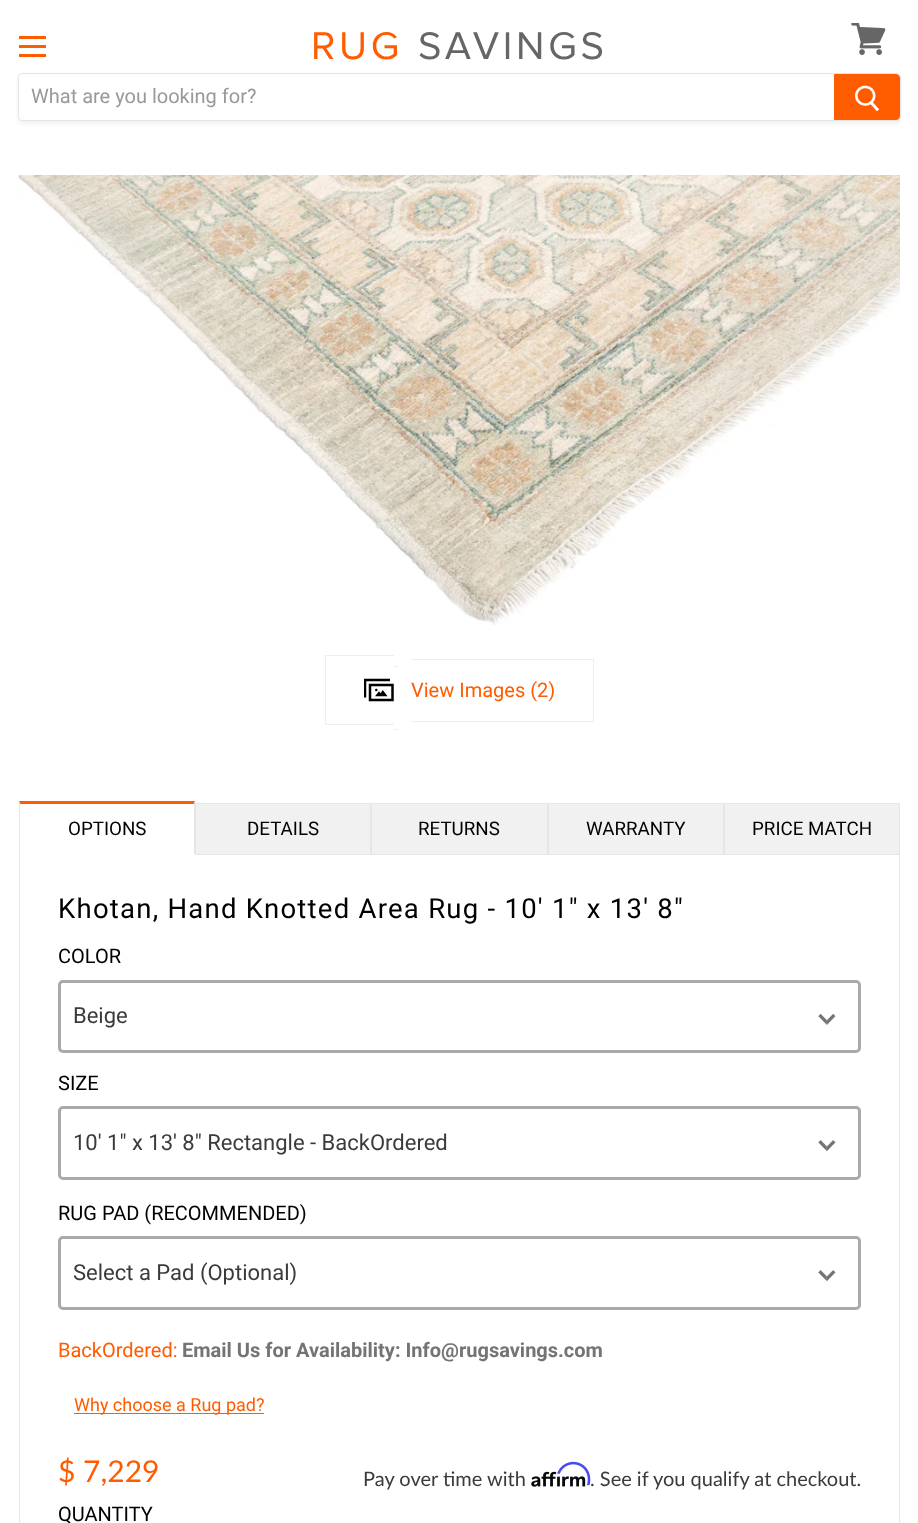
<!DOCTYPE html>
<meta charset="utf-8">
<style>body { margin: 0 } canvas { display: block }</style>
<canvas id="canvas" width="918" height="1523"></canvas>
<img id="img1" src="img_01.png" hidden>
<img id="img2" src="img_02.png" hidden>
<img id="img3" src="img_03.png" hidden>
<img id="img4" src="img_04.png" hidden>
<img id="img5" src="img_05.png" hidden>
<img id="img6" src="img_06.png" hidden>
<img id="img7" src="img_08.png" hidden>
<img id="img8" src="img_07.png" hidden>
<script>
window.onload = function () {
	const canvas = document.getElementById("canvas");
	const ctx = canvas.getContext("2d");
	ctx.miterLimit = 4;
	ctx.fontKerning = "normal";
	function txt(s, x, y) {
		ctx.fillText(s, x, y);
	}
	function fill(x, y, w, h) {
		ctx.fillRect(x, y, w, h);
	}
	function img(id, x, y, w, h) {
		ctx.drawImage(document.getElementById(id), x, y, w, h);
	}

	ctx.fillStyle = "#FFFFFF";
	fill(0, 0, 918, 1523);
	ctx.save();
	ctx.beginPath();
	ctx.moveTo(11, 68);
	ctx.lineTo(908, 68);
	ctx.lineTo(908, 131);
	ctx.lineTo(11, 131);
	ctx.closePath();
	ctx.moveTo(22, 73);
	ctx.lineTo(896, 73);
	ctx.bezierCurveTo(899, 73, 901, 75, 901, 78);
	ctx.lineTo(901, 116);
	ctx.bezierCurveTo(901, 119, 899, 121, 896, 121);
	ctx.lineTo(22, 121);
	ctx.bezierCurveTo(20, 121, 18, 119, 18, 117);
	ctx.lineTo(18, 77);
	ctx.bezierCurveTo(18, 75, 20, 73, 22, 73);
	ctx.closePath();
	ctx.clip("evenodd");
	ctx.fillStyle = "rgba(127, 127, 127, 0.11)";
	ctx.filter = "blur(2px)";
	ctx.beginPath();
	ctx.roundRect(18, 75, 883, 49, 5);
	ctx.fill();
	ctx.filter = "none";
	ctx.restore();
	ctx.beginPath();
	ctx.roundRect(18.5, 73.5, 882, 47, [3.5, 4.5, 4.5, 3.5]);
	ctx.strokeStyle = "#E5E5E5";
	ctx.stroke();
	ctx.fillStyle = "#FF5C00";
	ctx.beginPath();
	ctx.roundRect(834.5, 74.5, 65, 45, [0, 3.5, 3.5, 0]);
	ctx.fill();
	ctx.strokeStyle = "#FF5C00";
	ctx.stroke();
	img("img1", 855, 85, 25, 27);
	img("img2", 851, 23, 35, 32);
	fill(19, 36, 27, 3);
	fill(19, 45, 27, 3);
	fill(19, 54, 27, 3);
	img("img3", 18, 175, 882, 450);
	img("img4", 364, 678, 30, 24);
	ctx.fillStyle = "#EEEEEE";
	fill(325, 655, 69, 1);
	fill(325, 724, 69, 1);
	fill(325, 655, 1, 70);
	fill(394, 666, 5, 1);
	fill(394, 729, 5, 1);
	fill(411, 659, 183, 1);
	fill(593, 659, 1, 64);
	fill(411, 721, 183, 1);
	ctx.fillStyle = "#FF5C00";
	ctx.beginPath();
	ctx.moveTo(19, 801);
	ctx.lineTo(195, 801);
	ctx.lineTo(194, 804);
	ctx.lineTo(20, 804);
	ctx.closePath();
	ctx.fill();
	ctx.fillStyle = "#F1F1F1";
	ctx.beginPath();
	ctx.rect(195.5, 803.5, 175, 51);
	ctx.fill();
	ctx.strokeStyle = "#E6E6E6";
	ctx.stroke();
	ctx.beginPath();
	ctx.rect(371.5, 803.5, 176, 51);
	ctx.fill();
	ctx.stroke();
	ctx.beginPath();
	ctx.rect(548.5, 803.5, 175, 51);
	ctx.fill();
	ctx.stroke();
	ctx.beginPath();
	ctx.rect(724.5, 803.5, 175, 51);
	ctx.fill();
	ctx.stroke();
	ctx.strokeRect(19.5, 854.5, 880, 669);
	ctx.fillStyle = "#E6E6E6";
	ctx.beginPath();
	ctx.moveTo(195, 801);
	ctx.lineTo(195, 855);
	ctx.lineTo(194, 854);
	ctx.lineTo(194, 804);
	ctx.closePath();
	ctx.fill();
	ctx.fillStyle = "#FFFFFF";
	fill(19, 854, 176, 1);
	ctx.fillStyle = "#E6E6E6";
	ctx.beginPath();
	ctx.moveTo(19, 855);
	ctx.lineTo(19, 801);
	ctx.lineTo(20, 804);
	ctx.lineTo(20, 854);
	ctx.closePath();
	ctx.fill();
	ctx.beginPath();
	ctx.roundRect(59.5, 981.5, 800, 70, 3.5);
	ctx.strokeStyle = "#AAAAAA";
	ctx.lineWidth = 3;
	ctx.stroke();
	img("img5", 818, 1013, 18, 12);
	ctx.beginPath();
	ctx.roundRect(59.5, 1107.5, 800, 71, 3.5);
	ctx.stroke();
	img("img6", 818, 1140, 18, 12);
	ctx.beginPath();
	ctx.roundRect(59.5, 1237.5, 800, 71, 3.5);
	ctx.stroke();
	img("img6", 818, 1270, 18, 12);
	ctx.fillStyle = "#FF5C00";
	fill(74, 1413, 190, 1);
	img("img7", 531, 1471, 55, 16);
	img("img8", 557, 1461, 34, 25);
	ctx.letterSpacing = "3.75px";
	ctx.font = "40px 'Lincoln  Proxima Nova'";
	txt("RUG", 311, 59);
	ctx.fillStyle = "#666666";
	txt("SAVINGS", 418, 59);
	ctx.letterSpacing = "0px";
	ctx.font = "20px Roboto";
	ctx.fillStyle = "#999999";
	txt("What are you looking for?", 31, 103);
	ctx.fillStyle = "#FF5C00";
	txt("View Images (2)", 411, 697);
	ctx.font = "18.75px Roboto";
	ctx.fillStyle = "#000000";
	txt("OPTIONS", 68, 835);
	txt("DETAILS", 247, 835);
	txt("RETURNS", 418, 835);
	txt("WARRANTY", 586, 835);
	txt("PRICE MATCH", 752, 835);
	ctx.letterSpacing = "1.25px";
	ctx.font = "27.5px Roboto";
	txt("Khotan, Hand Knotted Area Rug - 10' 1\" x 13' 8\"", 58, 918);
	ctx.letterSpacing = "0px";
	ctx.font = "20px Roboto";
	txt("COLOR", 58, 963);
	ctx.font = "22px Roboto";
	ctx.fillStyle = "#3B3B3B";
	txt("Beige", 73, 1023);
	ctx.font = "20px Roboto";
	ctx.fillStyle = "#000000";
	txt("SIZE", 58, 1090);
	ctx.font = "22px Roboto";
	ctx.fillStyle = "#3B3B3B";
	txt("10' 1\" x 13' 8\" Rectangle - BackOrdered", 73, 1150);
	ctx.font = "20px Roboto";
	ctx.fillStyle = "#000000";
	txt("RUG PAD (RECOMMENDED)", 58, 1220);
	ctx.font = "22px Roboto";
	ctx.fillStyle = "#3B3B3B";
	txt("Select a Pad (Optional)", 73, 1280);
	ctx.font = "20px Roboto";
	ctx.fillStyle = "#FF5C00";
	txt("BackOrdered:", 58, 1357);
	ctx.font = "bold 20px Roboto";
	ctx.fillStyle = "#747474";
	txt("Email Us for Availability: Info@rugsavings.com", 182, 1357);
	ctx.font = "18px Roboto";
	ctx.fillStyle = "#FF5C00";
	txt("Why choose a Rug pad?", 74, 1411);
	ctx.font = "30px Lato";
	txt("$ 7,229", 58, 1482);
	ctx.font = "20px Lato";
	ctx.fillStyle = "#3B3B3B";
	txt("Pay over time with", 363, 1486);
	txt(". See if you qualify at checkout.", 590, 1486);
	ctx.font = "20px Roboto";
	ctx.fillStyle = "#000000";
	txt("QUANTITY", 58, 1521);
};
</script>
